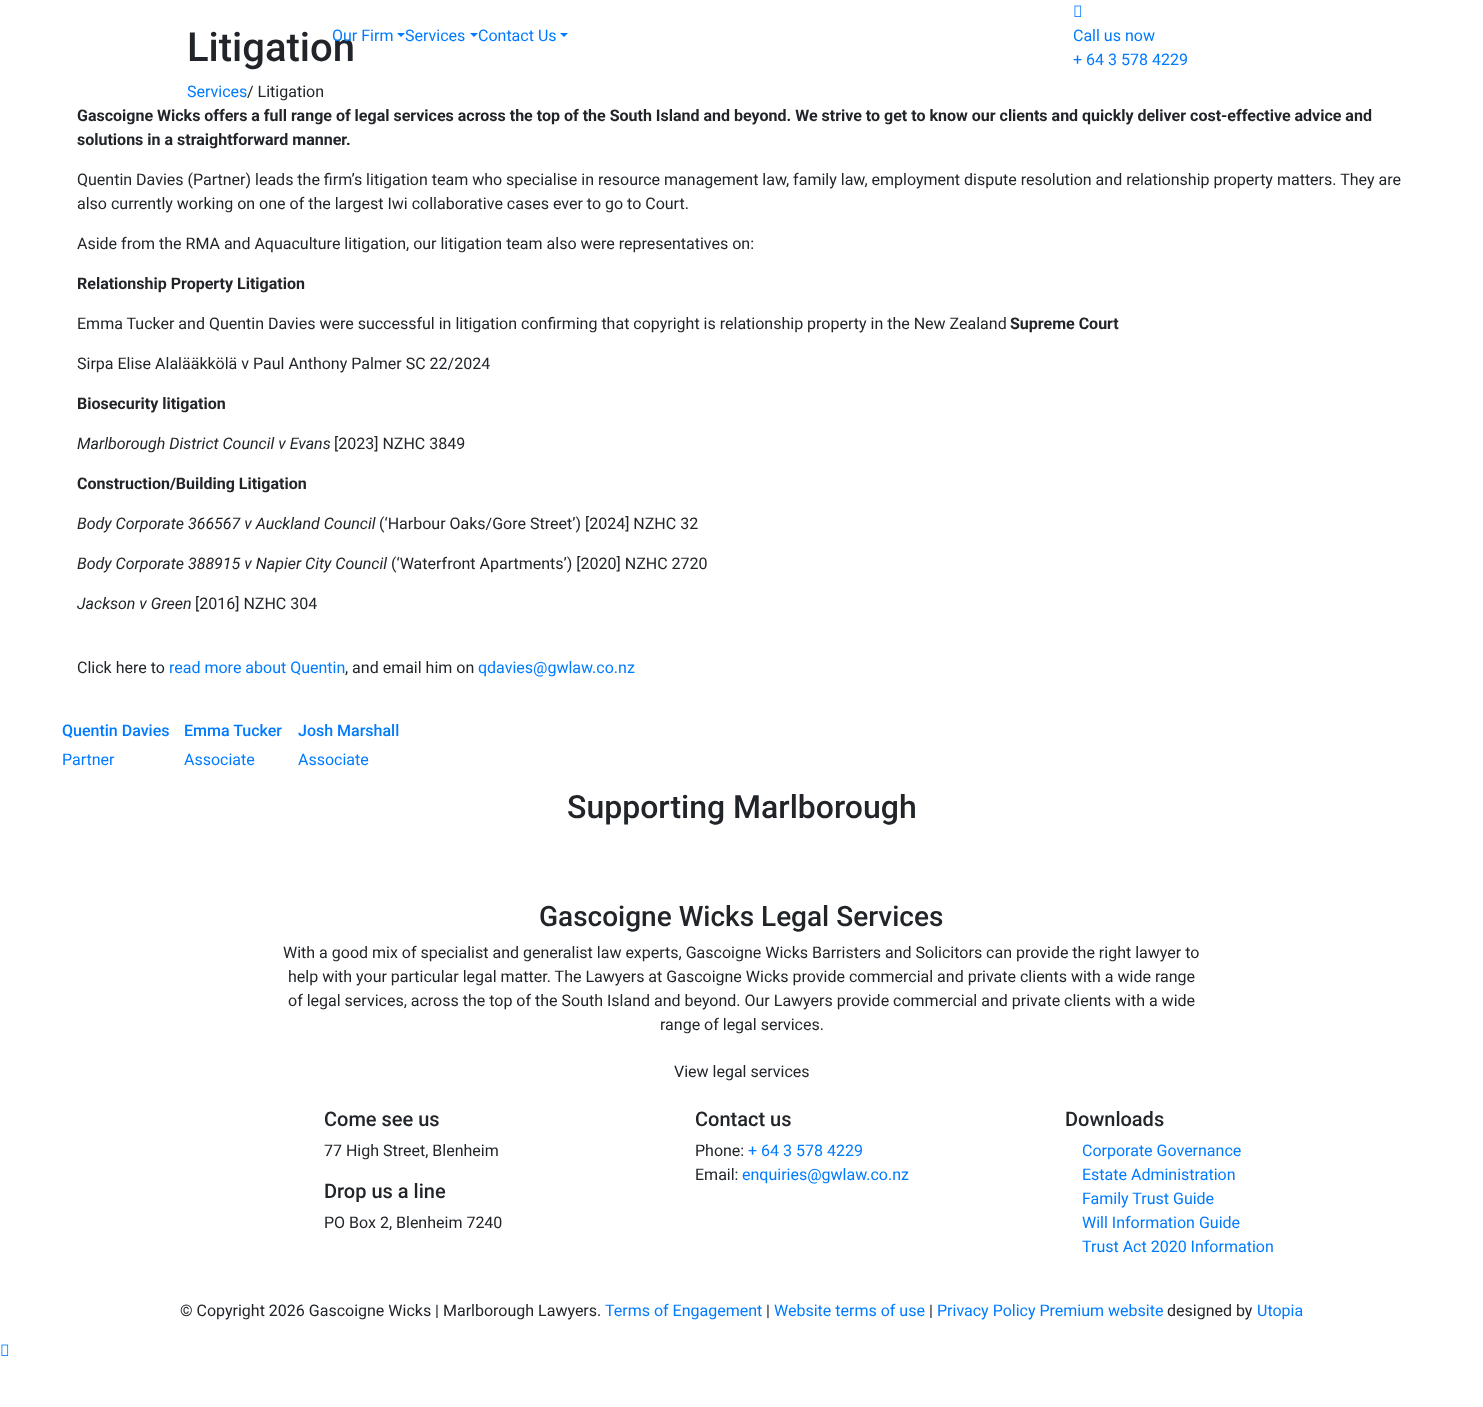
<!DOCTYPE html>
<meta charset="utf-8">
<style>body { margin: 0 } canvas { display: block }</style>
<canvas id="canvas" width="1483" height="1407"></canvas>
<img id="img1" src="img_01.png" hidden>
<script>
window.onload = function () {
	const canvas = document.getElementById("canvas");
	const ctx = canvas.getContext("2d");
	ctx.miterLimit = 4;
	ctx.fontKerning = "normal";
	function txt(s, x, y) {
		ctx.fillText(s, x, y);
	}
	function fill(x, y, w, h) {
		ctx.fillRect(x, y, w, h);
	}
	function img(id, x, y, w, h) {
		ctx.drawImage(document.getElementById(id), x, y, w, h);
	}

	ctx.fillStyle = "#FFFFFF";
	fill(0, 0, 1483, 1407);
	ctx.fillStyle = "#007BFF";
	ctx.beginPath();
	ctx.moveTo(397, 33);
	ctx.lineTo(405, 33);
	ctx.lineTo(401, 37);
	ctx.closePath();
	ctx.fill();
	ctx.beginPath();
	ctx.moveTo(470, 33);
	ctx.lineTo(478, 33);
	ctx.lineTo(474, 37);
	ctx.closePath();
	ctx.fill();
	ctx.beginPath();
	ctx.moveTo(560, 33);
	ctx.lineTo(568, 33);
	ctx.lineTo(564, 37);
	ctx.closePath();
	ctx.fill();
	img("img1", 1074, 5, 8, 12);
	img("img1", 1, 1344, 8, 12);
	ctx.font = "500 40px Roboto";
	ctx.fillStyle = "#212529";
	txt("Litigation", 187, 61);
	ctx.font = "16px Roboto";
	ctx.fillStyle = "#007BFF";
	txt("Services", 187, 97);
	ctx.fillStyle = "#212529";
	txt("/ Litigation", 247, 97);
	ctx.fillStyle = "#007BFF";
	txt("Our Firm", 332, 41);
	txt("Services", 405, 41);
	txt("Contact Us", 478, 41);
	txt("Call us now", 1073, 41);
	txt("+ 64 3 578 4229", 1073, 65);
	ctx.font = "bold 16px Roboto";
	ctx.fillStyle = "#212529";
	txt("Gascoigne Wicks offers a full range of legal services across the top of the South Island and beyond. We strive to get to know our clients and quickly deliver cost-effective advice and", 77, 121);
	txt("solutions in a straightforward manner.", 77, 145);
	ctx.font = "16px Roboto";
	txt("Quentin Davies (Partner) leads the firm’s litigation team who specialise in resource management law, family law, employment dispute resolution and relationship property matters. They are", 77, 185);
	txt("also currently working on one of the largest Iwi collaborative cases ever to go to Court.", 77, 209);
	txt("Aside from the RMA and Aquaculture litigation, our litigation team also were representatives on:", 77, 249);
	ctx.font = "bold 16px Roboto";
	txt("Relationship Property Litigation", 77, 289);
	ctx.font = "16px Roboto";
	txt("Emma Tucker and Quentin Davies were successful in litigation confirming that copyright is relationship property in the New Zealand", 77, 329);
	ctx.font = "bold 16px Roboto";
	txt("Supreme Court", 1010, 329);
	ctx.font = "16px Roboto";
	txt("Sirpa Elise Alalääkkölä v Paul Anthony Palmer SC 22/2024", 77, 369);
	ctx.font = "bold 16px Roboto";
	txt("Biosecurity litigation", 77, 409);
	ctx.font = "italic 16px Roboto";
	txt("Marlborough District Council v Evans", 77, 449);
	ctx.font = "16px Roboto";
	txt("[2023] NZHC 3849", 334, 449);
	ctx.font = "bold 16px Roboto";
	txt("Construction/Building Litigation", 77, 489);
	ctx.font = "italic 16px Roboto";
	txt("Body Corporate 366567 v Auckland Council", 77, 529);
	ctx.font = "16px Roboto";
	txt("(‘Harbour Oaks/Gore Street’) [2024] NZHC 32", 379, 529);
	ctx.font = "italic 16px Roboto";
	txt("Body Corporate 388915 v Napier City Council", 77, 569);
	ctx.font = "16px Roboto";
	txt("(‘Waterfront Apartments’) [2020] NZHC 2720", 391, 569);
	ctx.font = "italic 16px Roboto";
	txt("Jackson v Green", 77, 609);
	ctx.font = "16px Roboto";
	txt("[2016] NZHC 304", 195, 609);
	txt("Click here to", 77, 673);
	ctx.fillStyle = "#007BFF";
	txt("read more about Quentin", 169, 673);
	ctx.fillStyle = "#212529";
	txt(", and email him on", 345, 673);
	ctx.fillStyle = "#007BFF";
	txt("qdavies@gwlaw.co.nz", 478, 673);
	ctx.font = "500 16px Roboto";
	txt("Quentin Davies", 62, 736);
	ctx.font = "16px Roboto";
	txt("Partner", 62, 765);
	ctx.font = "500 16px Roboto";
	txt("Emma Tucker", 184, 736);
	ctx.font = "16px Roboto";
	txt("Associate", 184, 765);
	ctx.font = "500 16px Roboto";
	txt("Josh Marshall", 298, 736);
	ctx.font = "16px Roboto";
	txt("Associate", 298, 765);
	ctx.font = "500 32px Roboto";
	ctx.fillStyle = "#212529";
	txt("Supporting Marlborough", 567, 818);
	ctx.font = "500 28px Roboto";
	txt("Gascoigne Wicks Legal Services", 539, 926);
	ctx.font = "16px Roboto";
	txt("With a good mix of specialist and generalist law experts, Gascoigne Wicks Barristers and Solicitors can provide the right lawyer to", 283, 958);
	txt("help with your particular legal matter. The Lawyers at Gascoigne Wicks provide commercial and private clients with a wide range", 288, 982);
	txt("of legal services, across the top of the South Island and beyond. Our Lawyers provide commercial and private clients with a wide", 288, 1006);
	txt("range of legal services.", 660, 1030);
	txt("View legal services", 674, 1077);
	ctx.font = "500 20px Roboto";
	txt("Come see us", 324, 1126);
	ctx.font = "16px Roboto";
	txt("77 High Street, Blenheim", 324, 1156);
	ctx.font = "500 20px Roboto";
	txt("Drop us a line", 324, 1198);
	ctx.font = "16px Roboto";
	txt("PO Box 2, Blenheim 7240", 324, 1228);
	ctx.font = "500 20px Roboto";
	txt("Contact us", 695, 1126);
	ctx.font = "16px Roboto";
	txt("Phone:", 695, 1156);
	ctx.fillStyle = "#007BFF";
	txt("+ 64 3 578 4229", 748, 1156);
	ctx.fillStyle = "#212529";
	txt("Email:", 695, 1180);
	ctx.fillStyle = "#007BFF";
	txt("enquiries@gwlaw.co.nz", 742, 1180);
	ctx.font = "500 20px Roboto";
	ctx.fillStyle = "#212529";
	txt("Downloads", 1065, 1126);
	ctx.font = "16px Roboto";
	ctx.fillStyle = "#007BFF";
	txt("Corporate Governance", 1082, 1156);
	txt("Estate Administration", 1082, 1180);
	txt("Family Trust Guide", 1082, 1204);
	txt("Will Information Guide", 1082, 1228);
	txt("Trust Act 2020 Information", 1082, 1252);
	ctx.fillStyle = "#212529";
	txt("© Copyright 2026 Gascoigne Wicks | Marlborough Lawyers.", 180, 1316);
	ctx.fillStyle = "#007BFF";
	txt("Terms of Engagement", 605, 1316);
	ctx.fillStyle = "#212529";
	txt("|", 766, 1316);
	ctx.fillStyle = "#007BFF";
	txt("Website terms of use", 774, 1316);
	ctx.fillStyle = "#212529";
	txt("|", 929, 1316);
	ctx.fillStyle = "#007BFF";
	txt("Privacy Policy Premium website", 937, 1316);
	ctx.fillStyle = "#212529";
	txt("designed by", 1167, 1316);
	ctx.fillStyle = "#007BFF";
	txt("Utopia", 1257, 1316);
};
</script>
